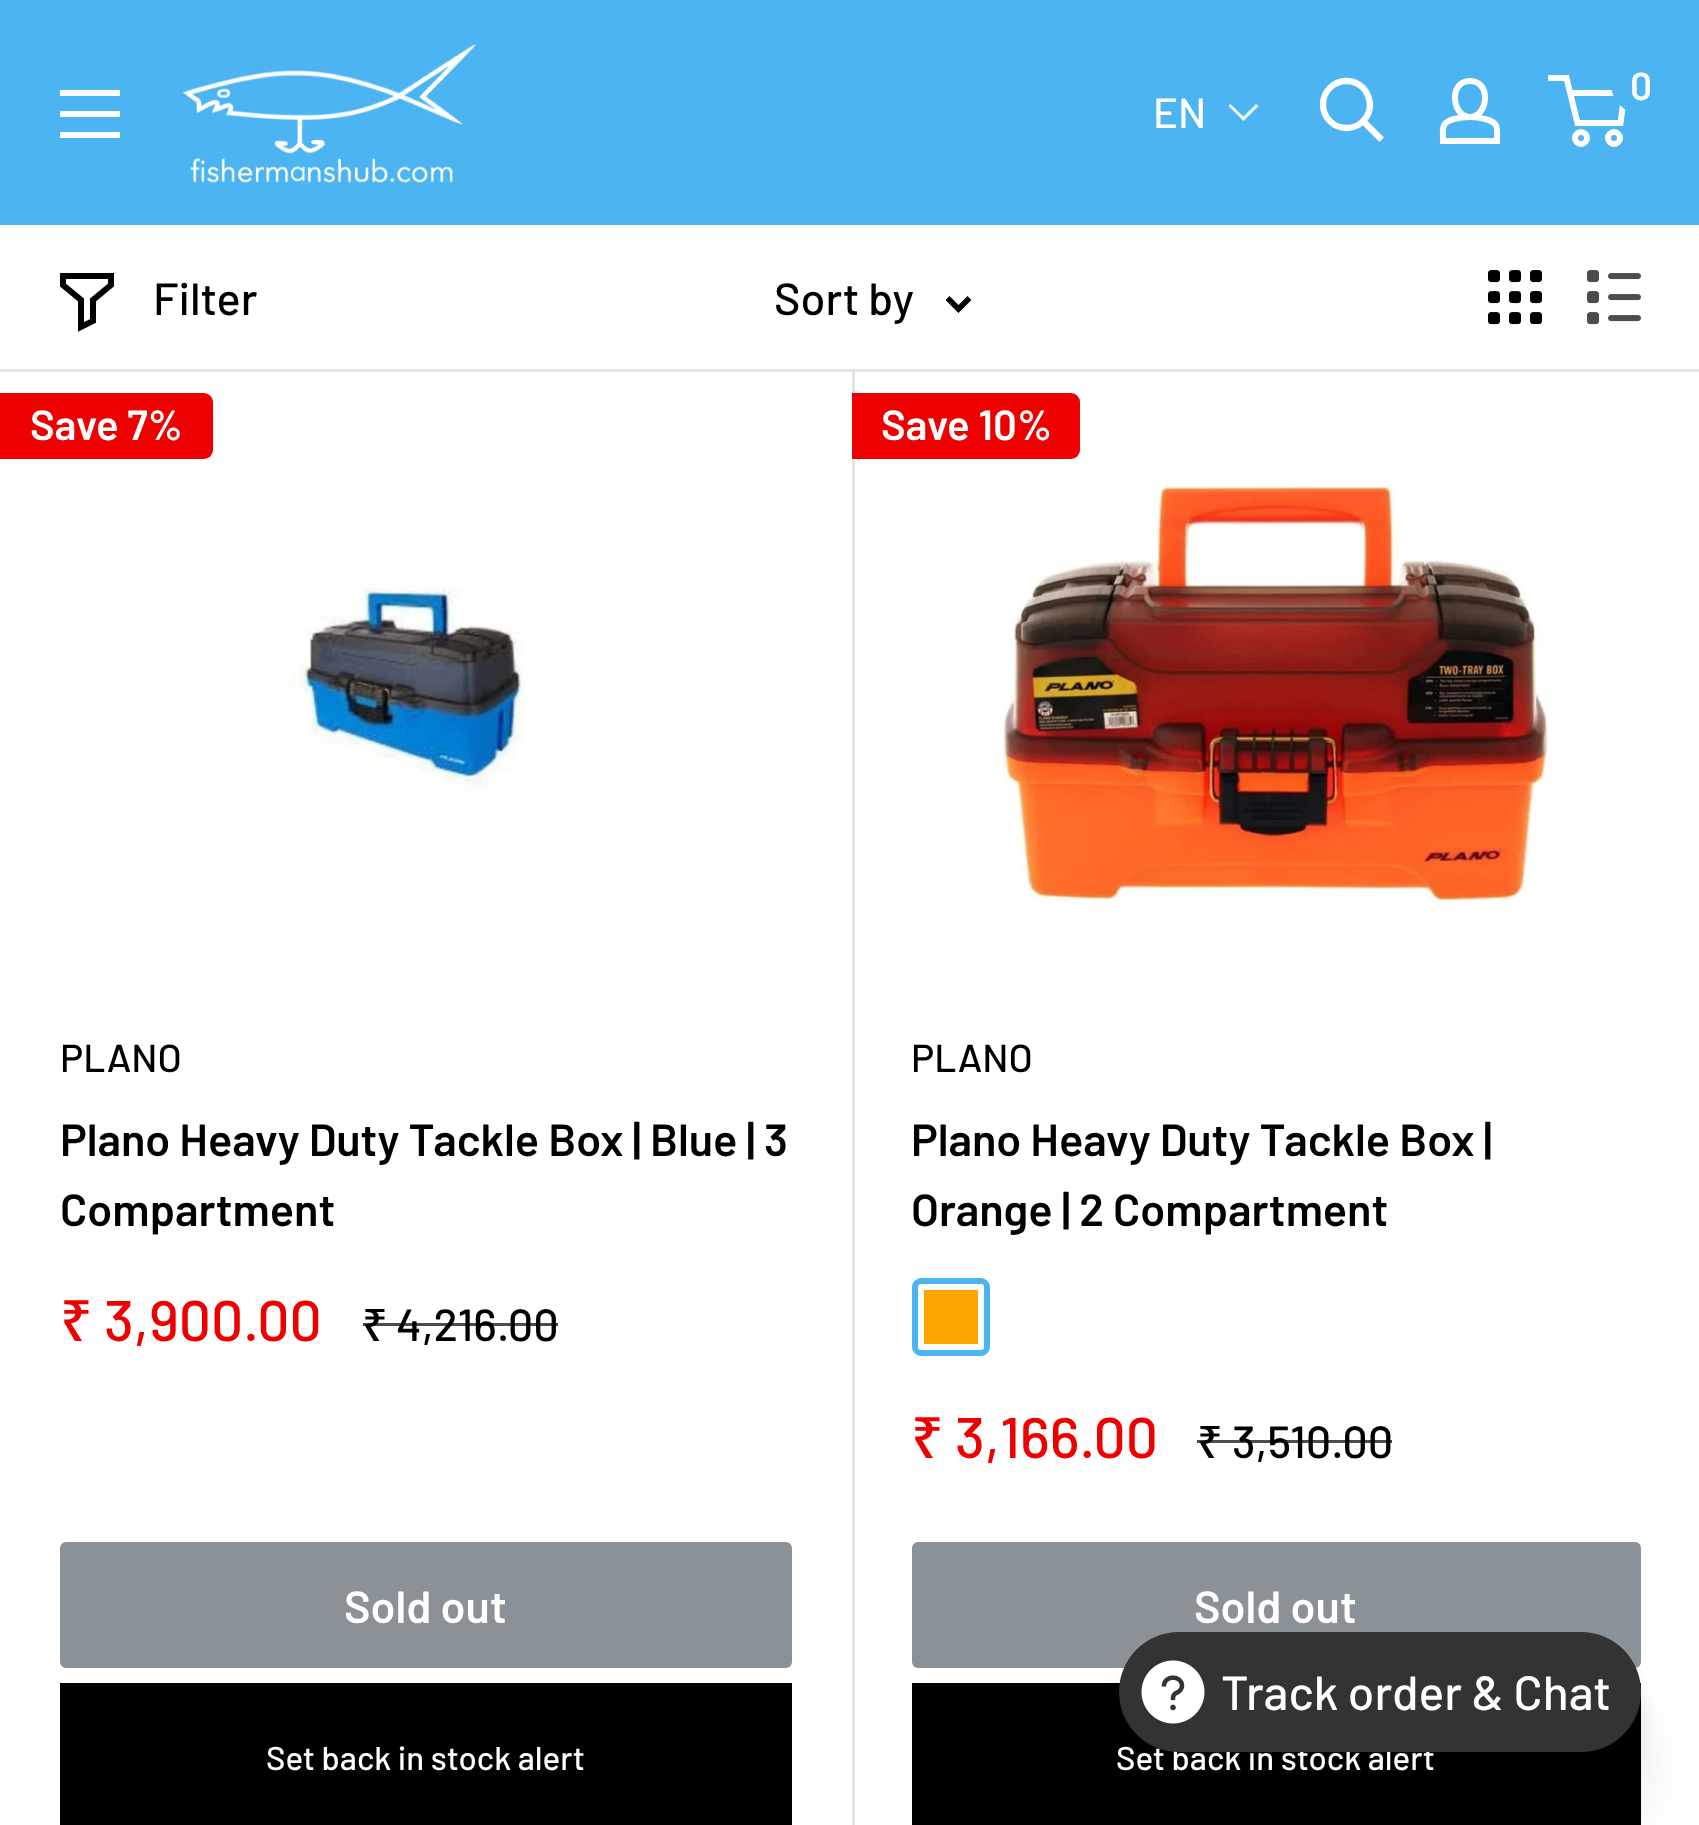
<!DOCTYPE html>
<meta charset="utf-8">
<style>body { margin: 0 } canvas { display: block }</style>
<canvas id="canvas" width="1699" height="1825"></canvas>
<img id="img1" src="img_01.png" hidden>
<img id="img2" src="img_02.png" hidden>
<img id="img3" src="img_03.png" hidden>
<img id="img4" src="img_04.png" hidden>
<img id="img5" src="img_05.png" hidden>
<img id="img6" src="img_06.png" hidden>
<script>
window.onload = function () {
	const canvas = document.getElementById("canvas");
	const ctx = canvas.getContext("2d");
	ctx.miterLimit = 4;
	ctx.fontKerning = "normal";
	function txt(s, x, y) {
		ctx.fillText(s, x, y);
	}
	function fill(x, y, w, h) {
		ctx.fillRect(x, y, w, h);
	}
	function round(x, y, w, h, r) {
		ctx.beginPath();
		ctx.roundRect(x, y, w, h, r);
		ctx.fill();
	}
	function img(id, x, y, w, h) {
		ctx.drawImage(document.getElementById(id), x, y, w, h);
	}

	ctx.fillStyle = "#FFFFFF";
	fill(0, 0, 1699, 1825);
	ctx.fillStyle = "#4CB5F1";
	fill(0, 0, 1699, 225);
	ctx.fillStyle = "#FFFFFF";
	ctx.beginPath();
	ctx.moveTo(60, 132);
	ctx.lineTo(120, 132);
	ctx.lineTo(120, 138);
	ctx.lineTo(60, 138);
	ctx.closePath();
	ctx.moveTo(60, 90);
	ctx.lineTo(120, 90);
	ctx.lineTo(120, 96);
	ctx.lineTo(60, 96);
	ctx.closePath();
	ctx.moveTo(60, 111);
	ctx.lineTo(120, 111);
	ctx.lineTo(120, 117);
	ctx.lineTo(60, 117);
	ctx.closePath();
	ctx.fill("evenodd");
	img("img1", 182, 44, 294, 139);
	ctx.fillStyle = "#EDF8FE";
	ctx.beginPath();
	ctx.moveTo(1256, 104);
	ctx.lineTo(1258.5, 106);
	ctx.lineTo(1243.5, 121);
	ctx.lineTo(1241.5, 118.5);
	ctx.closePath();
	ctx.fill();
	ctx.beginPath();
	ctx.moveTo(1230.5, 104);
	ctx.lineTo(1245.5, 118.5);
	ctx.lineTo(1243.5, 121);
	ctx.lineTo(1228.5, 106);
	ctx.closePath();
	ctx.fill();
	ctx.beginPath();
	ctx.moveTo(1379.5, 137.5);
	ctx.lineTo(1364, 122);
	ctx.strokeStyle = "#FFFFFF";
	ctx.lineWidth = 6.3;
	ctx.lineCap = "square";
	ctx.stroke();
	ctx.beginPath();
	ctx.arc(1346.5, 104.5, 23.5, 0, Math.PI * 2);
	ctx.stroke();
	ctx.beginPath();
	ctx.moveTo(1470, 117);
	ctx.bezierCurveTo(1475.5, 117, 1481.5, 118, 1487, 119.5);
	ctx.bezierCurveTo(1499.5, 123, 1497, 129.5, 1497, 141);
	ctx.lineTo(1443, 141);
	ctx.bezierCurveTo(1443, 129, 1440.5, 122.5, 1454, 119);
	ctx.bezierCurveTo(1459.5, 117.5, 1464.5, 117, 1470, 117);
	ctx.closePath();
	ctx.moveTo(1470, 117);
	ctx.bezierCurveTo(1452, 117, 1448, 81, 1470, 81);
	ctx.bezierCurveTo(1492, 81, 1488, 117, 1470, 117);
	ctx.closePath();
	ctx.lineWidth = 6;
	ctx.lineCap = "butt";
	ctx.stroke();
	ctx.beginPath();
	ctx.arc(1581, 138, 6, 0, Math.PI * 2);
	ctx.stroke();
	ctx.beginPath();
	ctx.arc(1614, 138, 6, 0, Math.PI * 2);
	ctx.stroke();
	ctx.beginPath();
	ctx.moveTo(1570, 93);
	ctx.lineTo(1624.5, 93);
	ctx.lineTo(1620.5, 123);
	ctx.lineTo(1577.5, 123);
	ctx.lineTo(1566.5, 78);
	ctx.lineTo(1548, 78);
	ctx.stroke();
	ctx.fillStyle = "#4CB5F1";
	ctx.beginPath();
	ctx.arc(1641, 84, 30, 0, Math.PI * 2);
	ctx.fill();
	ctx.fillStyle = "#E1E3E4";
	fill(0, 369, 1699, 3);
	ctx.beginPath();
	ctx.moveTo(111, 285);
	ctx.lineTo(93, 300);
	ctx.lineTo(93, 321);
	ctx.lineTo(81, 327);
	ctx.lineTo(81, 300);
	ctx.lineTo(63, 285);
	ctx.lineTo(63, 276);
	ctx.lineTo(111, 276);
	ctx.closePath();
	ctx.strokeStyle = "#000000";
	ctx.lineCap = "square";
	ctx.stroke();
	ctx.beginPath();
	ctx.moveTo(967.5, 300);
	ctx.lineTo(958.5, 309);
	ctx.lineTo(949.5, 300);
	ctx.lineWidth = 5.6;
	ctx.stroke();
	img("img2", 1488, 270, 54, 55);
	img("img3", 1587, 270, 54, 55);
	ctx.fillStyle = "#EE0000";
	ctx.beginPath();
	ctx.roundRect(0, 393, 213, 66, [0, 9, 9, 0]);
	ctx.fill();
	ctx.fillStyle = "#E1E3E4";
	fill(852, 372, 3, 1453);
	img("img4", 286, 577, 240, 216);
	ctx.fillStyle = "#8A9297";
	ctx.beginPath();
	ctx.roundRect(61.5, 1543.5, 729, 123, 4.5);
	ctx.fill();
	ctx.strokeStyle = "#8A9297";
	ctx.lineWidth = 3;
	ctx.stroke();
	ctx.fillStyle = "#000000";
	fill(60, 1683, 732, 142);
	ctx.fillStyle = "#EE0000";
	ctx.beginPath();
	ctx.roundRect(852, 393, 228, 66, [0, 9, 9, 0]);
	ctx.fill();
	img("img5", 1003, 485, 546, 418);
	ctx.fillStyle = "#FFA500";
	fill(924, 1290, 54, 54);
	ctx.beginPath();
	ctx.roundRect(915, 1281, 72, 72, 6);
	ctx.strokeStyle = "#4CB5F1";
	ctx.lineWidth = 6;
	ctx.stroke();
	ctx.fillStyle = "#8A9297";
	ctx.beginPath();
	ctx.roundRect(913.5, 1543.5, 726, 123, 4.5);
	ctx.fill();
	ctx.strokeStyle = "#8A9297";
	ctx.lineWidth = 3;
	ctx.stroke();
	ctx.fillStyle = "#000000";
	fill(912, 1683, 729, 142);
	ctx.fillStyle = "rgba(0, 0, 0, 0.1)";
	ctx.filter = "blur(30px)";
	ctx.beginPath();
	ctx.roundRect(1119, 1707, 522, 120, 60);
	ctx.fill();
	ctx.filter = "none";
	ctx.fillStyle = "rgba(0, 0, 0, 0.06)";
	ctx.filter = "blur(14px)";
	ctx.beginPath();
	ctx.roundRect(1119, 1671, 522, 120, 60);
	ctx.fill();
	ctx.filter = "none";
	ctx.filter = "blur(6.5px)";
	ctx.beginPath();
	ctx.roundRect(1119, 1650, 522, 120, 60);
	ctx.fill();
	ctx.filter = "none";
	ctx.font = "500 42px Barlow";
	ctx.fillStyle = "#FFFFFF";
	txt("EN", 1153, 128);
	ctx.font = "600 39px Barlow";
	txt("0", 1630, 100);
	ctx.font = "500 45px Barlow";
	ctx.fillStyle = "#000000";
	txt("Filter", 153, 315);
	txt("Sort by", 774, 315);
	ctx.font = "600 42px Barlow";
	ctx.fillStyle = "#FFFFFF";
	txt("Save 7%", 30, 440);
	ctx.font = "500 39px Barlow";
	ctx.fillStyle = "#000000";
	txt("PLANO", 60, 1072);
	ctx.font = "600 45px Barlow";
	txt("Plano Heavy Duty Tackle Box | Blue | 3", 60, 1156);
	txt("Compartment", 60, 1226);
	ctx.font = "500 57px Noto Sans";
	ctx.fillStyle = "#EE0000";
	txt("₹", 60, 1341);
	ctx.font = "500 57px Barlow";
	txt("3,900.00", 104, 1341);
	ctx.font = "500 45px Noto Sans";
	ctx.fillStyle = "#000000";
	txt("₹", 362, 1341);
	ctx.font = "500 45px Barlow";
	txt("4,216.00", 396, 1341);
	ctx.fillStyle = "rgba(0, 0, 0, 0.7)";
	fill(363, 1323, 195, 3);
	ctx.font = "600 45px Barlow";
	ctx.fillStyle = "#FFFFFF";
	txt("Sold out", 344, 1623);
	ctx.font = "500 33px Barlow";
	txt("Set back in stock alert", 266, 1770);
	ctx.font = "600 42px Barlow";
	txt("Save 10%", 881, 440);
	ctx.font = "500 39px Barlow";
	ctx.fillStyle = "#000000";
	txt("PLANO", 911, 1072);
	ctx.font = "600 45px Barlow";
	txt("Plano Heavy Duty Tackle Box |", 911, 1156);
	txt("Orange | 2 Compartment", 911, 1226);
	ctx.font = "500 57px Noto Sans";
	ctx.fillStyle = "#EE0000";
	txt("₹", 911, 1458);
	ctx.font = "500 57px Barlow";
	txt("3,166.00", 955, 1458);
	ctx.font = "500 45px Noto Sans";
	ctx.fillStyle = "#000000";
	txt("₹", 1197, 1458);
	ctx.font = "500 45px Barlow";
	txt("3,510.00", 1232, 1458);
	ctx.fillStyle = "rgba(0, 0, 0, 0.7)";
	fill(1197, 1440, 195, 3);
	ctx.font = "600 45px Barlow";
	ctx.fillStyle = "#FFFFFF";
	txt("Sold out", 1194, 1623);
	ctx.font = "500 33px Barlow";
	txt("Set back in stock alert", 1116, 1770);
	ctx.fillStyle = "#333333";
	round(1119, 1632, 522, 120, 60);
	img("img6", 1141, 1660, 64, 64);
	ctx.font = "500 48px Barlow";
	ctx.fillStyle = "#FFFFFF";
	txt("Track order & Chat", 1221, 1710);
};
</script>
